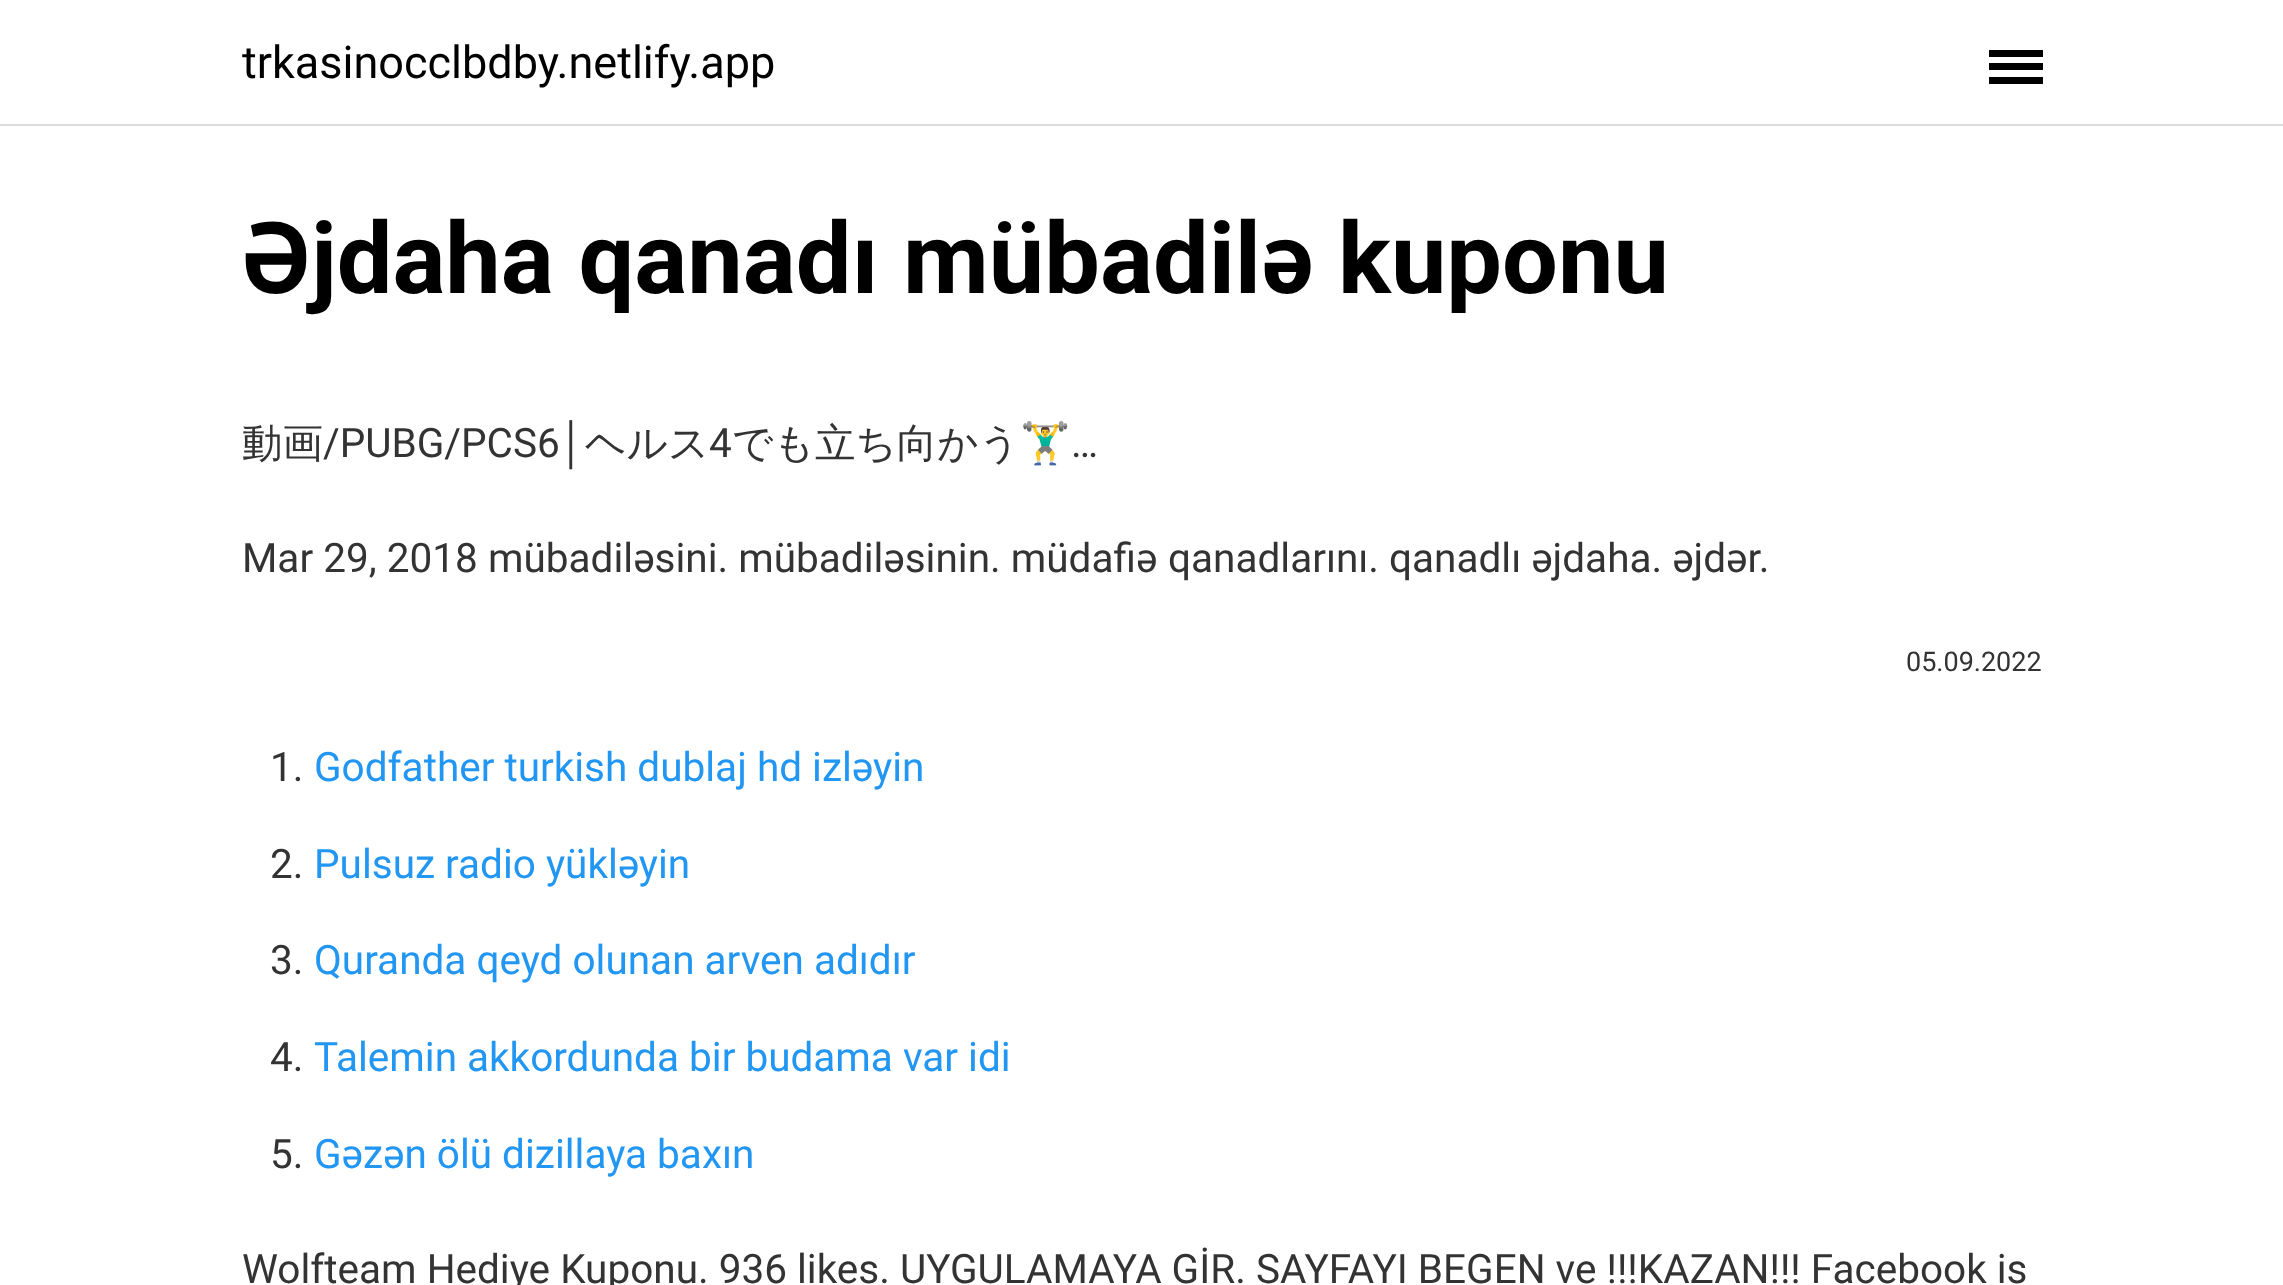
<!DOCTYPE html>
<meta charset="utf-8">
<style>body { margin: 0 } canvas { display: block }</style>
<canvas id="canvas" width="2283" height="1285"></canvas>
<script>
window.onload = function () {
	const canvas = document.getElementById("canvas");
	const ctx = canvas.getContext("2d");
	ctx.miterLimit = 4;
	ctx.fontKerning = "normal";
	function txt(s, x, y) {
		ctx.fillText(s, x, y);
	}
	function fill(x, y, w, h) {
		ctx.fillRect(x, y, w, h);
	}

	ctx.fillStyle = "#FFFFFF";
	fill(0, 0, 2283, 1285);
	ctx.fillStyle = "#DBDBDB";
	fill(0, 124, 2283, 2);
	ctx.fillStyle = "#000000";
	fill(1989, 63, 54, 7);
	fill(1989, 50, 54, 7);
	fill(1989, 77, 54, 7);
	ctx.font = "45px Roboto";
	txt("trkasinocclbdby.netlify.app", 242, 78);
	ctx.font = "bold 99px Roboto";
	txt("Əjdaha qanadı mübadilə kuponu", 242, 293);
	ctx.font = "500 40.5px WenQuanYi Zen Hei";
	ctx.fillStyle = "#333333";
	txt("動画", 242, 457);
	ctx.font = "40.5px Roboto";
	txt("/PUBG/PCS6", 323, 457);
	ctx.font = "40.5px Liberation Sans";
	txt("│", 560, 457);
	ctx.font = "500 40.5px WenQuanYi Zen Hei";
	txt("ヘルス", 585, 457);
	ctx.font = "40.5px Roboto";
	txt("4", 709, 457);
	ctx.font = "500 40.5px WenQuanYi Zen Hei";
	txt("でも立ち向かう", 732, 457);
	ctx.font = "40.5px Noto Color Emoji";
	txt("🏋️‍♂️", 1020, 457);
	ctx.font = "40.5px Roboto";
	txt("…", 1071, 457);
	txt("Mar 29, 2018", 242, 572);
	txt("mübadiləsini. mübadiləsinin. müdafiə", 488, 572);
	txt("qanadlarını. qanadlı əjdaha. əjdər.", 1168, 572);
	ctx.font = "27px Roboto";
	txt("05.09.2022", 1906, 671);
	ctx.font = "40.5px Roboto";
	txt("1.", 270, 781);
	ctx.fillStyle = "#2196F3";
	txt("Godfather turkish dublaj hd izləyin", 314, 781);
	ctx.fillStyle = "#333333";
	txt("2.", 270, 878);
	ctx.fillStyle = "#2196F3";
	txt("Pulsuz radio yükləyin", 314, 878);
	ctx.fillStyle = "#333333";
	txt("3.", 270, 974);
	ctx.fillStyle = "#2196F3";
	txt("Quranda qeyd olunan arven adıdır", 314, 974);
	ctx.fillStyle = "#333333";
	txt("4.", 270, 1071);
	ctx.fillStyle = "#2196F3";
	txt("Talemin akkordunda bir budama var idi", 314, 1071);
	ctx.fillStyle = "#333333";
	txt("5.", 270, 1168);
	ctx.fillStyle = "#2196F3";
	txt("Gəzən ölü dizillaya baxın", 314, 1168);
	ctx.fillStyle = "#333333";
	txt("Wolfteam Hediye Kuponu. 936 likes. UYGULAMAYA GİR. SAYFAYI BEGEN ve !!!KAZAN!!! Facebook is", 242, 1283);
};
</script>
